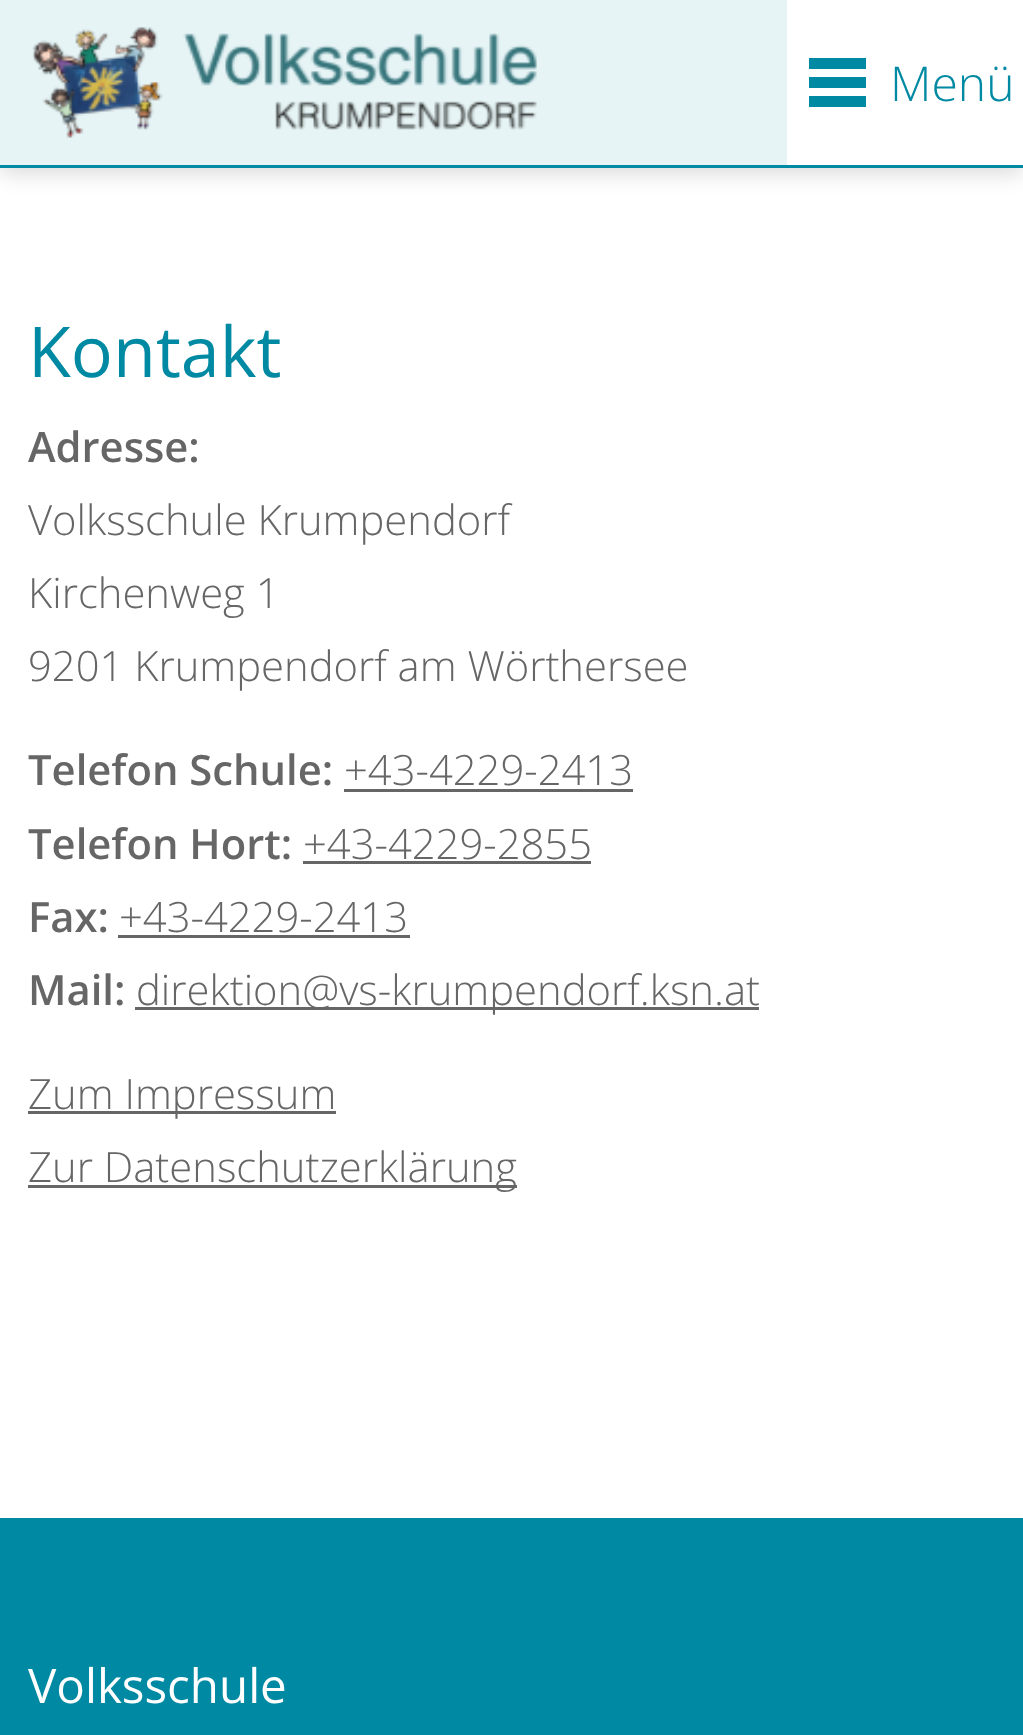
<!DOCTYPE html>
<meta charset="utf-8">
<style>body { margin: 0 } canvas { display: block }</style>
<canvas id="canvas" width="1023" height="1735"></canvas>
<img id="img1" src="img_01.png" hidden>
<script>
window.onload = function () {
	const canvas = document.getElementById("canvas");
	const ctx = canvas.getContext("2d");
	ctx.miterLimit = 4;
	ctx.fontKerning = "normal";
	function txt(s, x, y) {
		ctx.fillText(s, x, y);
	}
	function fill(x, y, w, h) {
		ctx.fillRect(x, y, w, h);
	}
	function img(id, x, y, w, h) {
		ctx.drawImage(document.getElementById(id), x, y, w, h);
	}

	ctx.fillStyle = "#FFFFFF";
	fill(0, 0, 1023, 1735);
	ctx.fillStyle = "rgba(0, 0, 0, 0.15)";
	ctx.filter = "blur(11px)";
	ctx.beginPath();
	ctx.rect(0, 6, 1023, 167);
	ctx.fill();
	ctx.filter = "none";
	ctx.fillStyle = "#0089A3";
	fill(0, 165, 1023, 3);
	ctx.fillStyle = "#E6F4F6";
	fill(0, 0, 787, 165);
	img("img1", 32, 27, 505, 111);
	ctx.fillStyle = "#FFFFFF";
	fill(787, 0, 236, 165);
	ctx.fillStyle = "#0089A3";
	fill(809, 58, 57, 11);
	fill(809, 77, 57, 11);
	fill(809, 96, 57, 11);
	ctx.fillStyle = "#666666";
	fill(344, 789, 289, 3);
	fill(303, 861, 288, 3);
	fill(118, 935, 292, 3);
	fill(135, 1007, 624, 3);
	fill(28, 1111, 308, 3);
	fill(28, 1185, 489, 3);
	ctx.fillStyle = "#0089A3";
	fill(0, 1518, 1023, 217);
	ctx.font = "300 48px Open Sans";
	txt("Menü", 890, 101);
	ctx.font = "70px Open Sans";
	txt("Kontakt", 28, 377);
	ctx.font = "600 41.75px Open Sans";
	ctx.fillStyle = "#666666";
	txt("Adresse:", 28, 462);
	ctx.font = "300 41.75px Open Sans";
	txt("Volksschule Krumpendorf", 28, 535);
	txt("Kirchenweg 1", 28, 608);
	txt("9201 Krumpendorf am Wörthersee", 28, 681);
	ctx.font = "600 41.75px Open Sans";
	txt("Telefon Schule:", 28, 785);
	ctx.font = "300 41.75px Open Sans";
	txt("+43-4229-2413", 344, 785);
	ctx.font = "600 41.75px Open Sans";
	txt("Telefon Hort:", 28, 859);
	ctx.font = "300 41.75px Open Sans";
	txt("+43-4229-2855", 303, 859);
	ctx.font = "600 41.75px Open Sans";
	txt("Fax:", 28, 932);
	ctx.font = "300 41.75px Open Sans";
	txt("+43-4229-2413", 119, 932);
	ctx.font = "600 41.75px Open Sans";
	txt("Mail:", 28, 1005);
	ctx.font = "300 41.75px Open Sans";
	txt("direktion@vs-krumpendorf.ksn.at", 136, 1005);
	txt("Zum Impressum", 28, 1109);
	txt("Zur Datenschutzerklärung", 28, 1182);
	ctx.font = "47.5px Open Sans";
	ctx.fillStyle = "#FFFFFF";
	txt("Volksschule", 28, 1703);
};
</script>
